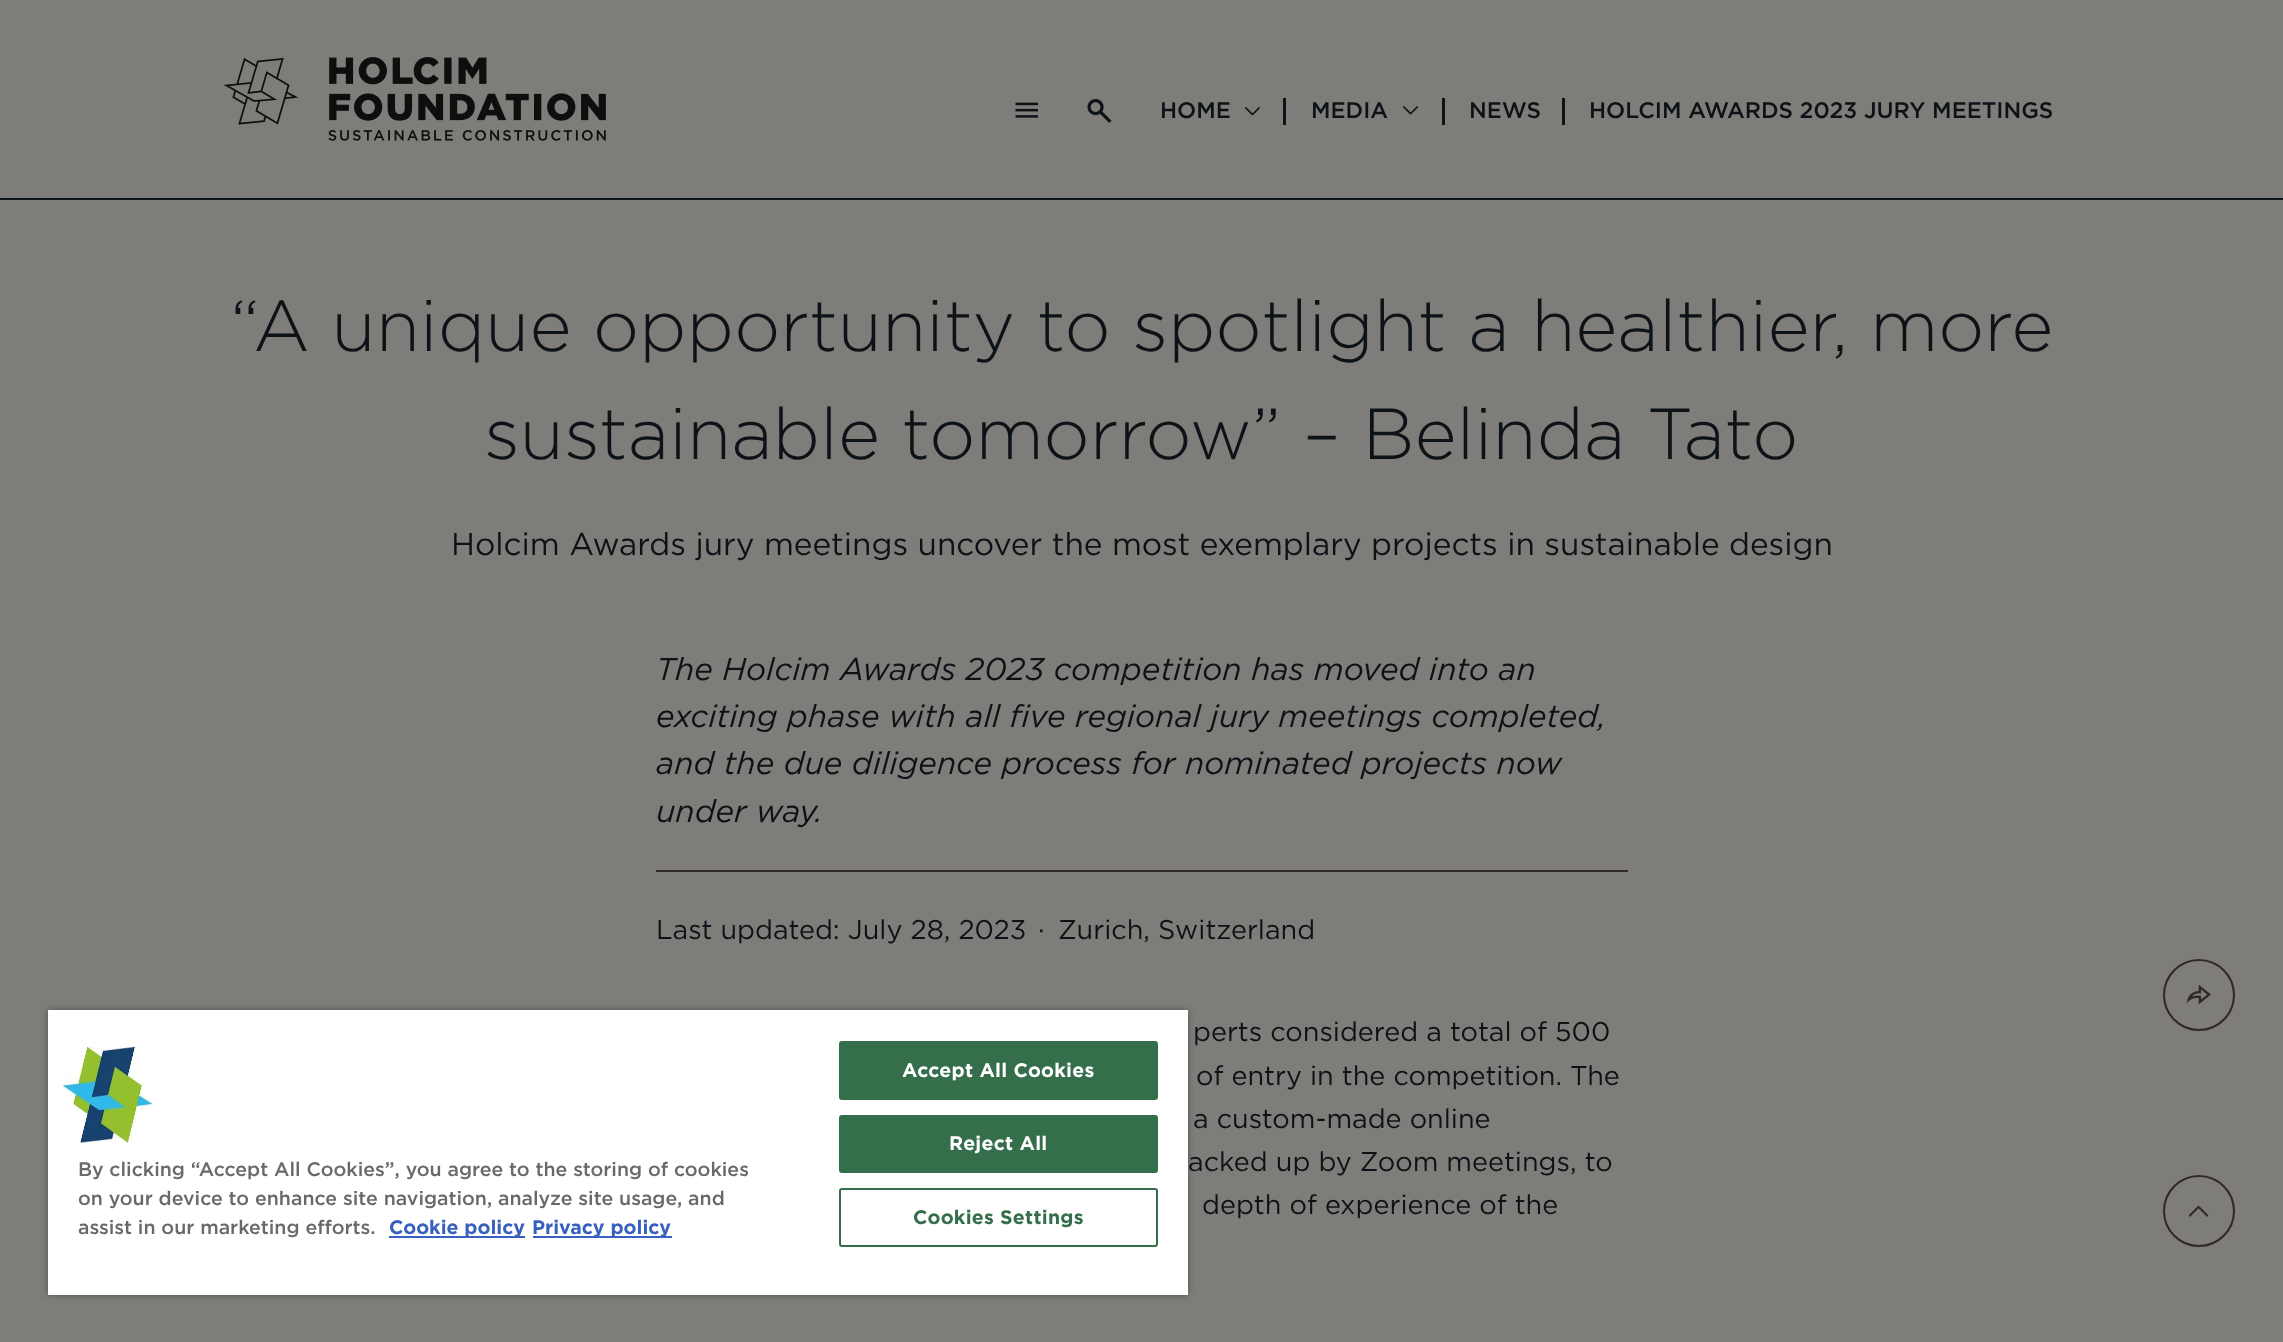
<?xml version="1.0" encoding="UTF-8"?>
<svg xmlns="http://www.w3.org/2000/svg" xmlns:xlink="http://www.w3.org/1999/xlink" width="2283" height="1342">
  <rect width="100%" height="100%" fill="#7e7d7a" />
  <rect y="198" width="2283" height="2" fill="#0d1217" />
  <image x="224" y="57" width="382" height="84" xlink:href="image1.png" />
  <image x="1015" y="102" width="23" height="16" xlink:href="image2.png" />
  <image x="1087" y="99" width="25" height="24" xlink:href="image3.png" />
  <image x="1245" y="107" width="15" height="9" xlink:href="image4.png" />
  <rect x="1283" y="98" width="3" height="27" fill="#0d1217" />
  <image x="1403" y="106" width="15" height="9" xlink:href="image5.png" />
  <rect x="1442" y="98" width="3" height="27" fill="#0d1217" />
  <rect x="1562" y="98" width="3" height="27" fill="#0d1217" />
  <rect x="656" y="870" width="972" height="2" fill="#302823" />
  <circle cx="2199" cy="995" r="35" fill="none" stroke="#302823" stroke-width="2" />
  <image x="2187" y="984" width="24" height="21" xlink:href="image6.png" />
  <circle cx="2199" cy="1211" r="35" fill="none" stroke="#302823" stroke-width="2" />
  <image x="2188" y="1205" width="21" height="12" xlink:href="image7.png" />
  <rect x="48" y="1010" width="1140" height="285" fill="#000000" fill-opacity="0.35" filter="blur(3px)" />
  <rect x="48" y="1010" width="1140" height="285" fill="#ffffff" />
  <image x="63" y="1047" width="90" height="96" xlink:href="image8.png" />
  <rect x="389" y="1236" width="136" height="2" fill="#3860be" />
  <rect x="533" y="1236" width="139" height="2" fill="#3860be" />
  <rect x="840" y="1042" width="317" height="57" rx="2" fill="#346e4a" stroke="#346e4a" stroke-width="2" />
  <rect x="840" y="1116" width="317" height="56" rx="2" fill="#346e4a" stroke="#346e4a" stroke-width="2" />
  <rect x="840" y="1189" width="317" height="57" rx="2" fill="none" stroke="#346e4a" stroke-width="2" />
  <text x="1160" y="118" style="font-family: 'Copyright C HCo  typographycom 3'; font-size: 22.5px; font-weight: 300; fill: #0d1217">HOME</text>
  <text x="1311" y="118" style="font-family: 'Copyright C HCo  typographycom 3'; font-size: 22.5px; font-weight: 300; fill: #0d1217">MEDIA</text>
  <text x="1469" y="118" style="font-family: 'Copyright C HCo  typographycom 3'; font-size: 22.5px; font-weight: 300; fill: #0d1217">NEWS</text>
  <text x="1589" y="118" style="font-family: 'Copyright C HCo  typographycom 3'; font-size: 22.5px; font-weight: 300; fill: #0d1217">HOLCIM AWARDS 2023 JURY MEETINGS</text>
  <text x="230" y="351" style="font-family: 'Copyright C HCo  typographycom'; font-size: 72px; font-weight: 300; fill: #0d1217">“A unique opportunity to spotlight a healthier, more</text>
  <text x="484" y="459" style="font-family: 'Copyright C HCo  typographycom'; font-size: 72px; font-weight: 300; fill: #0d1217">sustainable tomorrow” – Belinda Tato</text>
  <text x="451" y="555" style="font-family: 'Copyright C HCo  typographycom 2'; font-size: 31.5px; font-weight: 300; fill: #0d1217">Holcim Awards jury meetings uncover the most exemplary projects in sustainable design</text>
  <text x="656" y="680" style="font-family: 'Copyright C HCo  typographycom'; font-size: 31.5px; font-weight: 300; font-style: italic; fill: #0d1217">The Holcim Awards 2023 competition has moved into an</text>
  <text x="656" y="727" style="font-family: 'Copyright C HCo  typographycom'; font-size: 31.5px; font-weight: 300; font-style: italic; fill: #0d1217">exciting phase with all five regional jury meetings completed,</text>
  <text x="656" y="774" style="font-family: 'Copyright C HCo  typographycom'; font-size: 31.5px; font-weight: 300; font-style: italic; fill: #0d1217">and the due diligence process for nominated projects now</text>
  <text x="656" y="822" style="font-family: 'Copyright C HCo  typographycom'; font-size: 31.5px; font-weight: 300; font-style: italic; fill: #0d1217">under way.</text>
  <text x="656" y="939" style="font-family: 'Copyright C HCo  typographycom 2'; font-size: 27px; font-weight: 300; fill: #0d1217">Last updated: July 28, 2023</text>
  <text x="1038" y="939" style="font-family: 'Copyright C HCo  typographycom 2'; font-size: 27px; font-weight: 300; fill: #0d1217">·</text>
  <text x="1058" y="939" style="font-family: 'Copyright C HCo  typographycom 2'; font-size: 27px; font-weight: 300; fill: #0d1217">Zurich, Switzerland</text>
  <text x="1193" y="1041" style="font-family: 'Copyright C HCo  typographycom 2'; font-size: 27px; font-weight: 300; fill: #0d1217">perts considered a total of 500</text>
  <text x="1196" y="1085" style="font-family: 'Copyright C HCo  typographycom 2'; font-size: 27px; font-weight: 300; fill: #0d1217">of entry in the competition. The</text>
  <text x="1193" y="1128" style="font-family: 'Copyright C HCo  typographycom 2'; font-size: 27px; font-weight: 300; fill: #0d1217">a custom-made online</text>
  <text x="1188" y="1171" style="font-family: 'Copyright C HCo  typographycom 2'; font-size: 27px; font-weight: 300; fill: #0d1217">acked up by Zoom meetings, to</text>
  <text x="1202" y="1214" style="font-family: 'Copyright C HCo  typographycom 2'; font-size: 27px; font-weight: 300; fill: #0d1217">depth of experience of the</text>
  <text x="78" y="1176" style="font-family: 'Copyright C HCo  typographycom 3'; font-size: 19.5px; font-weight: 300; fill: #696969">By clicking “Accept All Cookies”, you agree to the storing of cookies</text>
  <text x="78" y="1205" style="font-family: 'Copyright C HCo  typographycom 3'; font-size: 19.5px; font-weight: 300; fill: #696969">on your device to enhance site navigation, analyze site usage, and</text>
  <text x="78" y="1234" style="font-family: 'Copyright C HCo  typographycom 3'; font-size: 19.5px; font-weight: 300; fill: #696969">assist in our marketing efforts.</text>
  <text x="389" y="1234" style="font-family: 'Copyright C HCo  typographycom'; font-size: 19.5px; fill: #3860be">Cookie policy</text>
  <text x="532" y="1234" style="font-family: 'Copyright C HCo  typographycom'; font-size: 19.5px; fill: #3860be">Privacy policy</text>
  <text x="902" y="1077" style="font-family: 'Copyright C HCo  typographycom'; font-size: 19.5px; letter-spacing: 0.25px; fill: #ffffff">Accept All Cookies</text>
  <text x="949" y="1150" style="font-family: 'Copyright C HCo  typographycom'; font-size: 19.5px; letter-spacing: 0.25px; fill: #ffffff">Reject All</text>
  <text x="913" y="1224" style="font-family: 'Copyright C HCo  typographycom'; font-size: 19.5px; letter-spacing: 0.25px; fill: #346e4a">Cookies Settings</text>
</svg>
